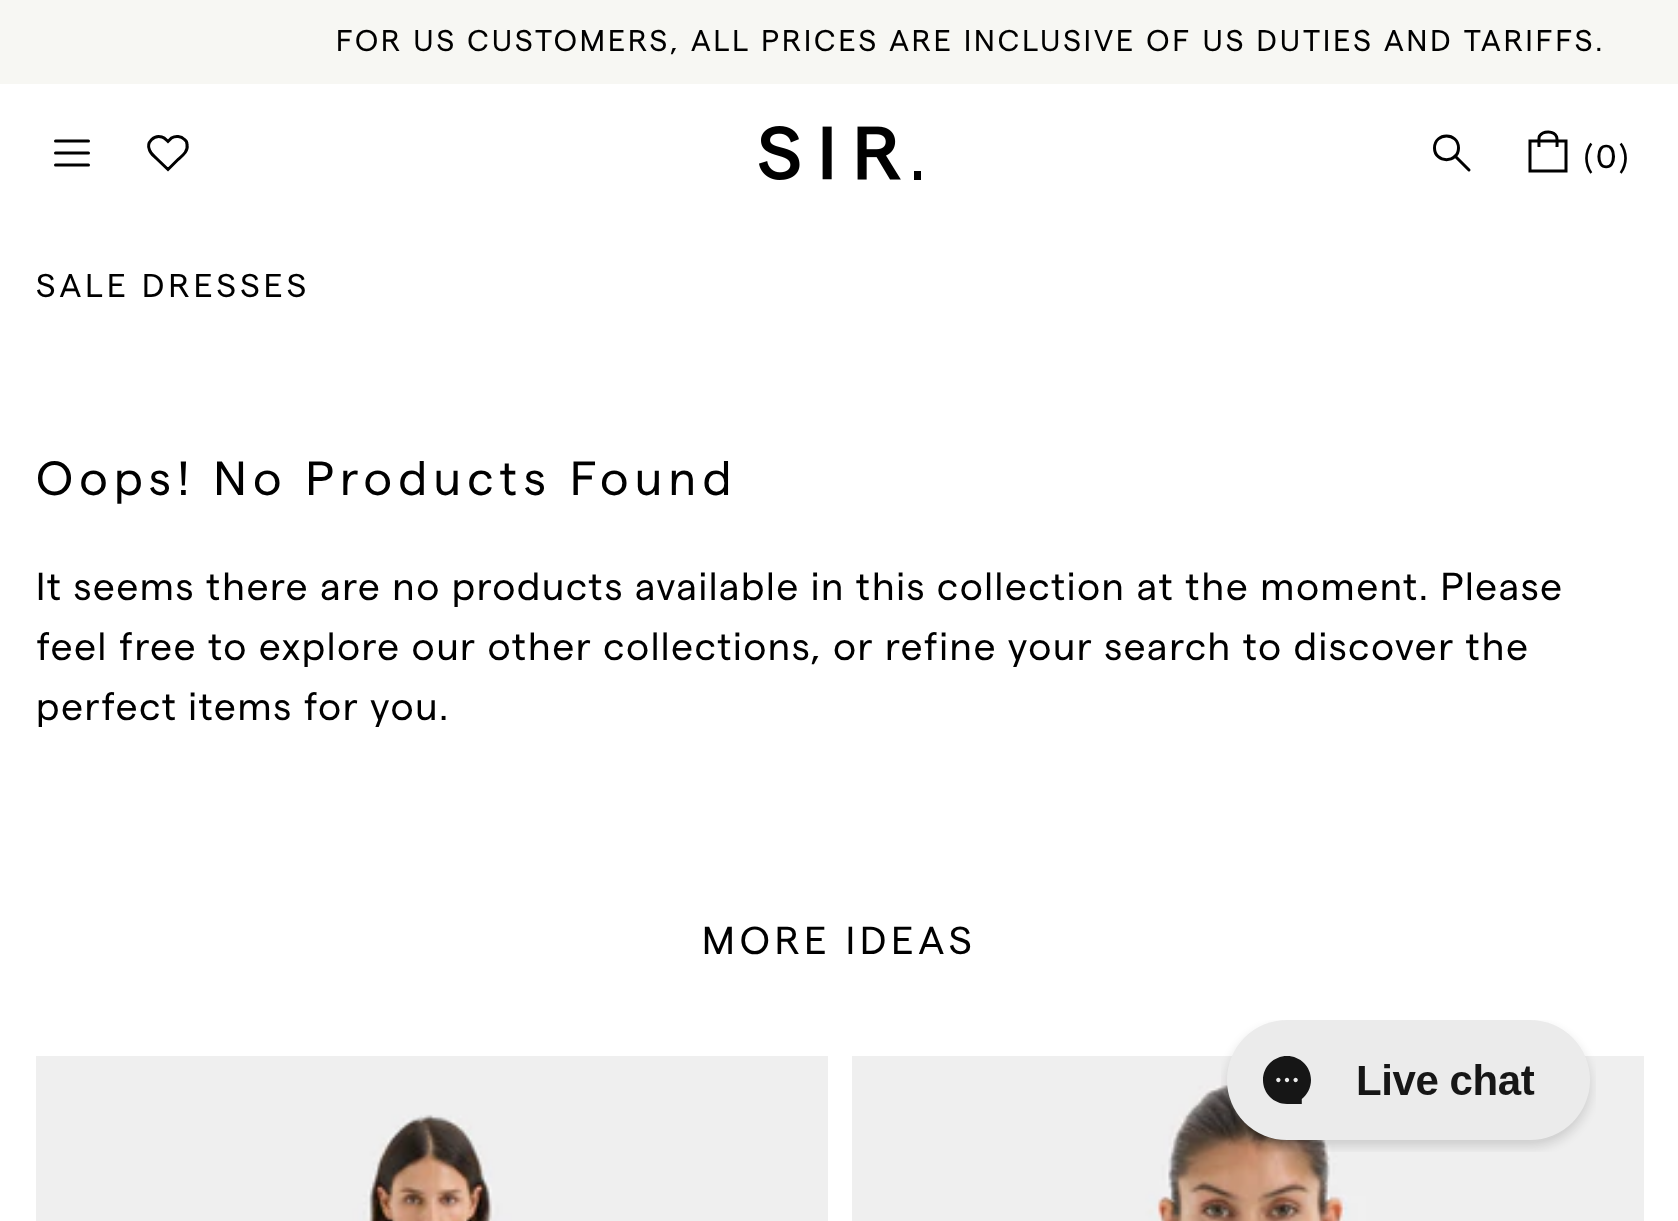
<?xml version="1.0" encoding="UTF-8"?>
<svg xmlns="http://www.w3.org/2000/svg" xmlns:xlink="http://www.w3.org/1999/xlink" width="1678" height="1221">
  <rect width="100%" height="100%" fill="#ffffff" />
  <rect width="1678" height="84" fill="#f7f7f3" />
  <path d="M 55.5 153 h 33 m -33 -12 h 33 m -33 24 h 33" fill="none" stroke="#000000" stroke-width="3" stroke-linecap="round" stroke-linejoin="round" />
  <path d="M 184.5 139.5 c -3.5 -3.5 -9 -4 -13 -1.5 l -3.5 3.5 c -2 -2 -3.5 -4 -6 -4.5 c -8 -2.5 -16 5.5 -12.5 13 c 1 3.5 4 5.5 6.5 8 l 12 11.5 l 9.5 -9.5 c 4.5 -4 11 -8.5 9.5 -15.5 c 0 -2 -1 -4 -2.5 -5 z" fill="none" stroke="#000000" stroke-width="3" stroke-linecap="square" />
  <image x="759" y="126" width="162" height="54" xlink:href="image1.png" />
  <path d="M 1458.5 148 c 0 15.5 -24 15.5 -24 0 c 0 -16 24 -16 24 0 z" fill="none" stroke="#000000" stroke-width="3" stroke-linejoin="round" />
  <path d="M 1455 156 l 14 14" fill="none" stroke="#000000" stroke-width="3" stroke-linecap="round" stroke-linejoin="round" />
  <path d="M 1566 171 h -36 v -30 h 36 z m -27 -24 c 0 -3 -0.5 -9 0.5 -11 c 3.5 -5.5 14.5 -5.5 17 0.5 c 1 2.5 0.5 8 0.5 10.5" fill="none" stroke="#000000" stroke-width="3" />
  <image x="36" y="1056" width="792" height="165" xlink:href="image2.png" />
  <image x="852" y="1056" width="792" height="165" xlink:href="image3.png" />
  <image x="1221" y="1020" width="375" height="132" xlink:href="image4.png" />
  <text x="336" y="51" style="font-family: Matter; font-size: 30px; letter-spacing: 3px; fill: #000000">FOR US CUSTOMERS, ALL PRICES ARE INCLUSIVE OF US DUTIES AND TARIFFS.</text>
  <text x="1584" y="168" style="font-family: Matter; font-size: 33px; letter-spacing: 4.25px; fill: #000000">(</text>
  <text x="1596" y="168" style="font-family: Matter; font-size: 33px; letter-spacing: 4.25px; fill: #000000">0</text>
  <text x="1619" y="168" style="font-family: Matter; font-size: 33px; letter-spacing: 4.25px; fill: #000000">)</text>
  <text x="36" y="297" style="font-family: Matter; font-size: 33px; letter-spacing: 4.25px; fill: #000000">SALE DRESSES</text>
  <text x="36" y="495" style="font-family: Matter; font-size: 48px; letter-spacing: 6.25px; fill: #000000">Oops! No Products Found</text>
  <text x="36" y="600" style="font-family: Matter; font-size: 39px; letter-spacing: 1.5px; fill: #000000">It seems there are no products available in this collection at the moment. Please</text>
  <text x="36" y="660" style="font-family: Matter; font-size: 39px; letter-spacing: 1.5px; fill: #000000">feel free to explore our other collections, or refine your search to discover the</text>
  <text x="36" y="720" style="font-family: Matter; font-size: 39px; letter-spacing: 1.5px; fill: #000000">perfect items for you.</text>
  <text x="702" y="954" style="font-family: Matter; font-size: 39px; letter-spacing: 5px; fill: #000000">MORE IDEAS</text>
</svg>
